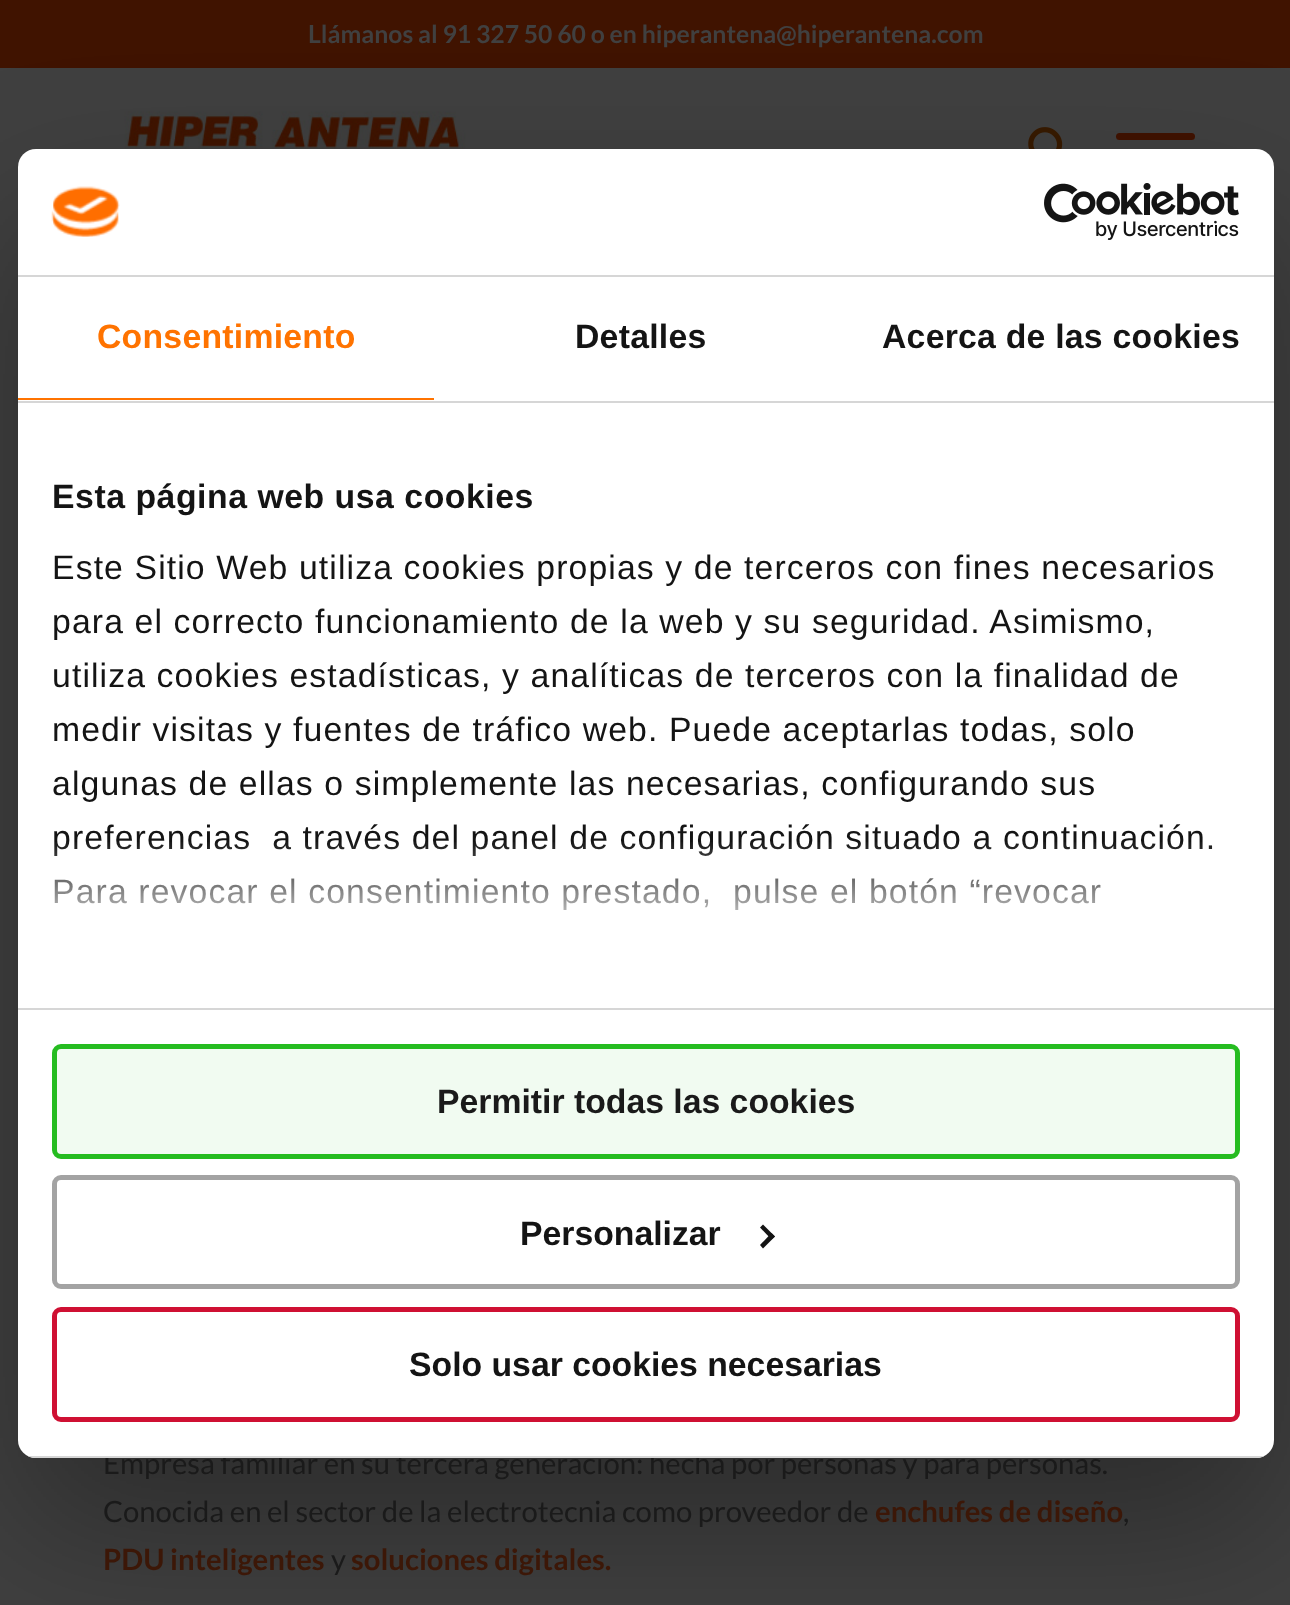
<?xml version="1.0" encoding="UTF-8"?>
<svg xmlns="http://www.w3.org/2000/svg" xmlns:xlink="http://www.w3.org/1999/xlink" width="1290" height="1605">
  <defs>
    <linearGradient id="g1" gradientUnits="userSpaceOnUse" x1="631" y1="1009" x2="631" y2="840"><stop offset="0" stop-color="#ffffff" /><stop offset="0.5" stop-color="#ffffff" stop-opacity="0.8" /><stop offset="1" stop-color="#ffffff" stop-opacity="0" /></linearGradient>
    <clipPath id="clip1"><rect x="18" y="149" width="1256" height="1309" rx="18" /></clipPath>
  </defs>
  <rect width="100%" height="100%" fill="#404040" />
  <rect width="1290" height="68" fill="#401300" />
  <image x="124" y="111" width="342" height="38" xlink:href="image1.png" />
  <image x="1028" y="127" width="35" height="22" xlink:href="image2.png" />
  <rect x="1116" y="133" width="79" height="7" rx="3.5" fill="#401200" />
  <rect x="18" y="221" width="1256" height="1309" rx="18" fill="#000000" fill-opacity="0.3" filter="blur(76.5px)" />
  <text x="308" y="43" style="font-family: Lato; font-size: 24.75px; font-weight: bold; fill: #404040">Llámanos al 91 327 50 60 o en hiperantena@hiperantena.com</text>
  <text x="103" y="1474" style="font-family: Lato; font-size: 29.25px; fill: #1a1a1a">Empresa familiar en su tercera generación: hecha por personas y para personas.</text>
  <text x="103" y="1522" style="font-family: Lato; font-size: 29.25px; fill: #1a1a1a">Conocida en el sector de la electrotecnia como proveedor de</text>
  <text x="875" y="1522" style="font-family: Lato; font-size: 29.25px; font-weight: bold; fill: #3c1707">enchufes de diseño</text>
  <text x="1123" y="1522" style="font-family: Lato; font-size: 29.25px; fill: #1a1a1a">,</text>
  <text x="103" y="1570" style="font-family: Lato; font-size: 29.25px; font-weight: bold; fill: #3c1707">PDU inteligentes</text>
  <text x="331" y="1570" style="font-family: Lato; font-size: 29.25px; fill: #1a1a1a">y</text>
  <text x="351" y="1570" style="font-family: Lato; font-size: 29.25px; font-weight: bold; fill: #3c1707">soluciones digitales.</text>
  <rect x="18" y="149" width="1256" height="1309" rx="18" fill="#ffffff" />
  <rect x="18" y="275" width="1256" height="2" fill="#d6d6d6" />
  <image x="51" y="186" width="69" height="51" xlink:href="image3.png" />
  <image x="1044" y="183" width="195" height="57" xlink:href="image4.png" />
  <rect x="18" y="401" width="1256" height="2" fill="#d6d6d6" />
  <rect x="18" y="398" width="416" height="2" fill="#ff7300" />
  <text x="97" y="348" style="font-family: Liberation Sans; font-size: 33.75px; font-weight: bold; letter-spacing: 0.25px; fill: #ff7300">Consentimiento</text>
  <text x="575" y="348" style="font-family: Liberation Sans; font-size: 33.75px; font-weight: bold; letter-spacing: 0.25px; fill: #141414">Detalles</text>
  <text x="882" y="348" style="font-family: Liberation Sans; font-size: 33.75px; font-weight: bold; letter-spacing: 0.25px; fill: #141414">Acerca de las cookies</text>
  <rect x="18" y="1008" width="1256" height="2" fill="#d6d6d6" />
  <text x="52" y="508" style="font-family: Liberation Sans; font-size: 33.75px; font-weight: bold; letter-spacing: 0.55px; fill: #141414">Esta página web usa cookies</text>
  <text x="52" y="579" style="font-family: Liberation Sans; font-size: 33.75px; letter-spacing: 1.12px; fill: #141414">Este Sitio Web utiliza cookies propias y de terceros con fines necesarios</text>
  <text x="52" y="633" style="font-family: Liberation Sans; font-size: 33.75px; letter-spacing: 1.12px; fill: #141414">para el correcto funcionamiento de la web y su seguridad. Asimismo,</text>
  <text x="52" y="687" style="font-family: Liberation Sans; font-size: 33.75px; letter-spacing: 1.12px; fill: #141414">utiliza cookies estadísticas, y analíticas de terceros con la finalidad de</text>
  <text x="52" y="741" style="font-family: Liberation Sans; font-size: 33.75px; letter-spacing: 1.12px; fill: #141414">medir visitas y fuentes de tráfico web. Puede aceptarlas todas, solo</text>
  <text x="52" y="795" style="font-family: Liberation Sans; font-size: 33.75px; letter-spacing: 1.12px; fill: #141414">algunas de ellas o simplemente las necesarias, configurando sus</text>
  <text x="52" y="849" style="font-family: Liberation Sans; font-size: 33.75px; letter-spacing: 1.12px; fill: #141414" xml:space="preserve">preferencias  a través del panel de configuración situado a continuación.</text>
  <text x="52" y="903" style="font-family: Liberation Sans; font-size: 33.75px; letter-spacing: 1.12px; fill: #141414" xml:space="preserve">Para revocar el consentimiento prestado,  pulse el botón “revocar</text>
  <rect x="54" y="842" width="1159" height="68" fill="url(#g1)" />
  <g clip-path="url(#clip1)">
    <rect x="28" y="1456" width="1236" height="2" fill="#d6d6d6" />
  </g>
  <rect x="54.5" y="1046.5" width="1183" height="110" rx="6.5" fill="#f1fbf1" stroke="#25bc20" stroke-width="5" />
  <text x="437" y="1113" style="font-family: Liberation Sans; font-size: 33.75px; font-weight: bold; fill: #1a1a1a">Permitir todas las cookies</text>
  <rect x="54.5" y="1177.5" width="1183" height="109" rx="6.5" fill="none" stroke="#a3a3a3" stroke-width="5" />
  <text x="520" y="1245" style="font-family: Liberation Sans; font-size: 33.75px; font-weight: bold; fill: #141414">Personalizar</text>
  <path d="M 763 1224.5 l 12 12 l -3.5 3 l -11.5 -12 z" fill="#141414" />
  <path d="M 771.5 1233 l 3.5 3.5 l -12 12 l -3 -3.5 z" fill="#141414" />
  <rect x="54.5" y="1309.5" width="1183" height="110" rx="6.5" fill="none" stroke="#cf1033" stroke-width="5" />
  <text x="409" y="1376" style="font-family: Liberation Sans; font-size: 33.75px; font-weight: bold; fill: #141414">Solo usar cookies necesarias</text>
</svg>
